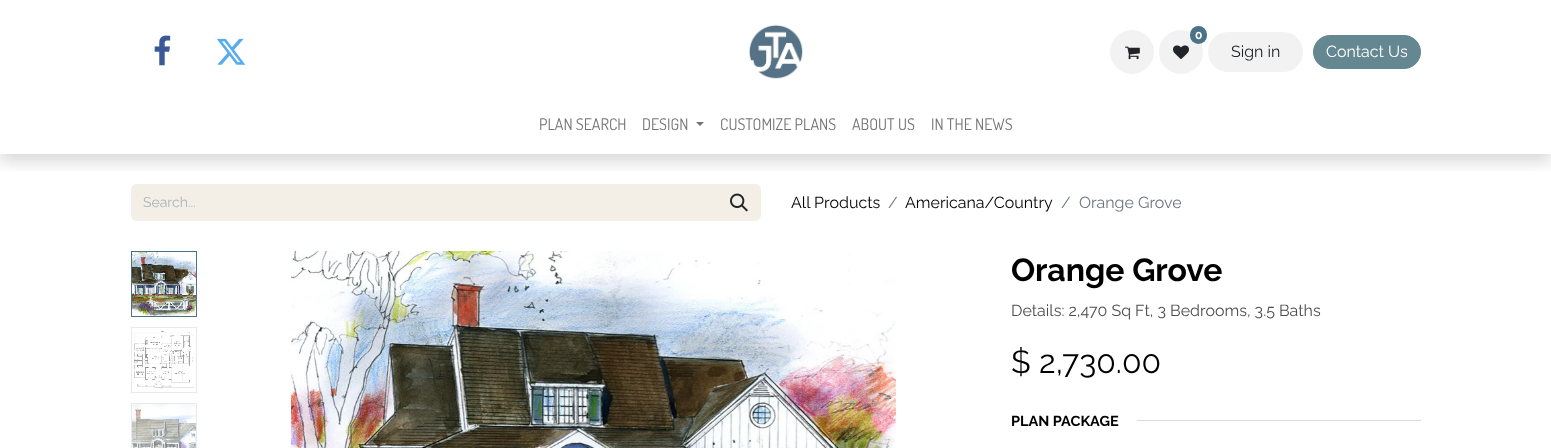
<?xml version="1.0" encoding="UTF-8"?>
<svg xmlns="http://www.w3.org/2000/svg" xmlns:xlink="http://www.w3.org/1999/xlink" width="1551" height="448">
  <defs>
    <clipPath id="clip1"><rect x="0" y="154" width="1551" height="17" /></clipPath>
  </defs>
  <rect width="100%" height="100%" fill="#ffffff" />
  <path d="M 137 184 h 581 v 37 h -581 c -3.5 0 -6 -2.5 -6 -6 v -25 c 0 -3.5 2.5 -6 6 -6 z" fill="#f3eee6" />
  <path d="M 717.5 184.5 h 37.5 c 3 0 5.5 2.5 5.5 5.5 v 25 c 0 3 -2.5 5.5 -5.5 5.5 h -37.5 z" fill="#f3eee6" stroke="#f3eee6" />
  <g clip-path="url(#clip1)">
    <rect y="8" width="1551" height="154" fill="#000000" fill-opacity="0.15" filter="blur(8px)" />
  </g>
  <image x="154" y="35" width="17" height="31" xlink:href="image1.png" />
  <image x="216" y="38" width="30" height="27" xlink:href="image2.png" />
  <image x="749" y="24" width="54" height="55" xlink:href="image3.png" />
  <circle cx="1132" cy="52" r="22" fill="#f2f2f2" />
  <image x="1125" y="46" width="15" height="14" xlink:href="image4.png" />
  <circle cx="1181" cy="52" r="22" fill="#f2f2f2" />
  <rect x="1190" y="26" width="17" height="18" rx="8.5" fill="#4c7288" />
  <image x="1173" y="45" width="16" height="15" xlink:href="image5.png" />
  <rect x="1208" y="32" width="95" height="40" rx="20" fill="#f2f2f2" />
  <rect x="1313.5" y="35.5" width="107" height="33" rx="16.5" fill="#658791" stroke="#658791" />
  <path d="M 696 122 h 8 l -4 4 z" fill="#737373" />
  <image x="730" y="193" width="18" height="19" xlink:href="image6.png" />
  <rect x="131.5" y="251.5" width="65" height="65" fill="none" stroke="#4c7288" />
  <image x="132" y="252" width="64" height="64" xlink:href="image7.png" />
  <rect x="131.5" y="327.5" width="65" height="65" fill="none" stroke="#e7eaed" />
  <image x="134" y="330" width="61" height="59" xlink:href="image8.png" />
  <rect x="131.5" y="403.5" width="65" height="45" fill="none" stroke="#e7eaed" />
  <image x="132" y="404" width="64" height="44" xlink:href="image9.png" />
  <image x="291" y="251" width="605" height="197" xlink:href="image10.png" />
  <rect x="1137" y="420" width="284" height="1" fill="#d9d9d9" />
  <text x="1195" y="39" style="font-family: Raleway; font-size: 12px; font-weight: bold; fill: #ffffff">0</text>
  <text x="1231" y="57" style="font-family: Raleway; font-size: 16px; fill: #212529">Sign in</text>
  <text x="1326" y="57" style="font-family: Raleway; font-size: 16px; fill: #ffffff">Contact Us</text>
  <text x="539" y="130" style="font-family: Dosis; font-size: 16px; fill: #737373">PLAN SEARCH</text>
  <text x="642" y="130" style="font-family: Dosis; font-size: 16px; fill: #737373">DESIGN</text>
  <text x="720" y="130" style="font-family: Dosis; font-size: 16px; fill: #737373">CUSTOMIZE PLANS</text>
  <text x="852" y="130" style="font-family: Dosis; font-size: 16px; fill: #737373">ABOUT US</text>
  <text x="931" y="130" style="font-family: Dosis; font-size: 16px; fill: #737373">IN THE NEWS</text>
  <text x="143" y="207" style="font-family: Raleway; font-size: 14px; fill: #adb5bd">Search...</text>
  <text x="791" y="208" style="font-family: Raleway; font-size: 16px; fill: #000000">All Products</text>
  <text x="888" y="208" style="font-family: Raleway; font-size: 16px; fill: #6c757d">/</text>
  <text x="905" y="208" style="font-family: Raleway; font-size: 16px; fill: #000000">Americana/Country</text>
  <text x="1061" y="208" style="font-family: Raleway; font-size: 16px; fill: #6c757d">/</text>
  <text x="1079" y="208" style="font-family: Raleway; font-size: 16px; fill: #6c757d">Orange Grove</text>
  <text x="1011" y="281" style="font-family: Raleway; font-size: 32px; font-weight: bold; fill: #000000">Orange Grove</text>
  <text x="1011" y="316" style="font-family: Raleway; font-size: 16px; fill: #4d4d4d">Details: 2,470 Sq Ft, 3 Bedrooms, 3.5 Baths</text>
  <text x="1011" y="373" style="font-family: Raleway; font-size: 32px; fill: #000000">$ 2,730.00</text>
  <text x="1011" y="426" style="font-family: Raleway; font-size: 14.5px; font-weight: bold; fill: #000000">PLAN PACKAGE</text>
</svg>
